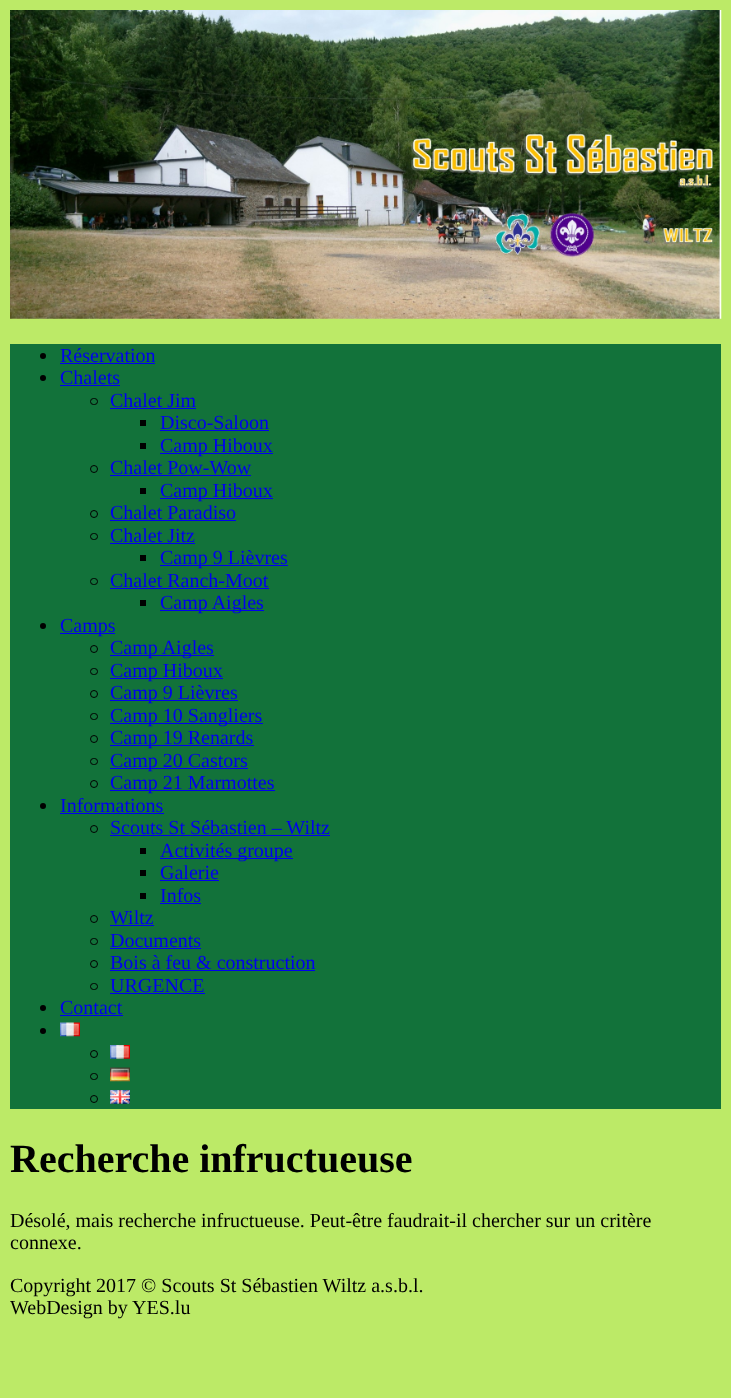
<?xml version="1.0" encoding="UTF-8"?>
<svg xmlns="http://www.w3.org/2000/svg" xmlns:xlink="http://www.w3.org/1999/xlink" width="731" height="1398">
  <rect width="100%" height="100%" fill="#bcea67" />
  <image x="10" y="10" width="712" height="309" xlink:href="image1.png" />
  <rect x="10" y="344" width="711" height="765" fill="#12723a" />
  <circle cx="43" cy="356" r="3" fill="#000000" />
  <rect x="60" y="363" width="95" height="1" fill="#0000ee" />
  <circle cx="43" cy="378" r="3" fill="#000000" />
  <rect x="60" y="385" width="60" height="1" fill="#0000ee" />
  <rect x="90.5" y="398.5" width="7" height="6" rx="3" fill="none" stroke="#000000" />
  <rect x="110" y="408" width="86" height="1" fill="#0000ee" />
  <rect x="140" y="420" width="6" height="6" fill="#000000" />
  <rect x="160" y="430" width="109" height="1" fill="#0000ee" />
  <rect x="140" y="443" width="6" height="6" fill="#000000" />
  <rect x="160" y="453" width="113" height="1" fill="#0000ee" />
  <circle cx="94" cy="469" r="3.5" fill="none" stroke="#000000" />
  <rect x="110" y="475" width="141" height="1" fill="#0000ee" />
  <rect x="140" y="488" width="6" height="6" fill="#000000" />
  <rect x="160" y="498" width="113" height="1" fill="#0000ee" />
  <circle cx="94" cy="514" r="3.5" fill="none" stroke="#000000" />
  <rect x="110" y="520" width="126" height="1" fill="#0000ee" />
  <rect x="90.5" y="533.5" width="7" height="6" rx="3" fill="none" stroke="#000000" />
  <rect x="110" y="543" width="85" height="1" fill="#0000ee" />
  <rect x="140" y="555" width="6" height="6" fill="#000000" />
  <rect x="160" y="565" width="128" height="1" fill="#0000ee" />
  <rect x="90.5" y="578.5" width="7" height="6" rx="3" fill="none" stroke="#000000" />
  <rect x="110" y="588" width="159" height="1" fill="#0000ee" />
  <rect x="140" y="600" width="6" height="6" fill="#000000" />
  <rect x="160" y="610" width="104" height="1" fill="#0000ee" />
  <circle cx="43" cy="626" r="3" fill="#000000" />
  <rect x="60" y="633" width="55" height="1" fill="#0000ee" />
  <circle cx="94" cy="649" r="3.5" fill="none" stroke="#000000" />
  <rect x="110" y="655" width="104" height="1" fill="#0000ee" />
  <rect x="90.5" y="668.5" width="7" height="6" rx="3" fill="none" stroke="#000000" />
  <rect x="110" y="678" width="113" height="1" fill="#0000ee" />
  <circle cx="94" cy="694" r="3.5" fill="none" stroke="#000000" />
  <rect x="110" y="700" width="128" height="1" fill="#0000ee" />
  <rect x="90.5" y="713.5" width="7" height="6" rx="3" fill="none" stroke="#000000" />
  <rect x="110" y="723" width="153" height="1" fill="#0000ee" />
  <circle cx="94" cy="739" r="3.5" fill="none" stroke="#000000" />
  <rect x="110" y="745" width="144" height="1" fill="#0000ee" />
  <rect x="90.5" y="758.5" width="7" height="6" rx="3" fill="none" stroke="#000000" />
  <rect x="110" y="768" width="138" height="1" fill="#0000ee" />
  <circle cx="94" cy="784" r="3.5" fill="none" stroke="#000000" />
  <rect x="110" y="790" width="165" height="1" fill="#0000ee" />
  <circle cx="43" cy="806" r="3" fill="#000000" />
  <rect x="60" y="813" width="104" height="1" fill="#0000ee" />
  <circle cx="94" cy="829" r="3.5" fill="none" stroke="#000000" />
  <rect x="110" y="835" width="220" height="1" fill="#0000ee" />
  <rect x="140" y="848" width="6" height="6" fill="#000000" />
  <rect x="160" y="858" width="133" height="1" fill="#0000ee" />
  <rect x="140" y="870" width="6" height="6" fill="#000000" />
  <rect x="160" y="880" width="59" height="1" fill="#0000ee" />
  <rect x="140" y="893" width="6" height="6" fill="#000000" />
  <rect x="160" y="903" width="41" height="1" fill="#0000ee" />
  <circle cx="94" cy="919" r="3.5" fill="none" stroke="#000000" />
  <rect x="110" y="925" width="44" height="1" fill="#0000ee" />
  <rect x="90.5" y="938.5" width="7" height="6" rx="3" fill="none" stroke="#000000" />
  <rect x="110" y="948" width="91" height="1" fill="#0000ee" />
  <circle cx="94" cy="964" r="3.5" fill="none" stroke="#000000" />
  <rect x="110" y="970" width="205" height="1" fill="#0000ee" />
  <rect x="90.5" y="983.5" width="7" height="6" rx="3" fill="none" stroke="#000000" />
  <rect x="110" y="993" width="95" height="1" fill="#0000ee" />
  <circle cx="43" cy="1008" r="3" fill="#000000" />
  <rect x="60" y="1015" width="63" height="1" fill="#0000ee" />
  <circle cx="43" cy="1031" r="3" fill="#000000" />
  <image x="60" y="1022" width="20" height="15" xlink:href="image2.png" />
  <circle cx="94" cy="1054" r="3.5" fill="none" stroke="#000000" />
  <image x="110" y="1045" width="20" height="14" xlink:href="image3.png" />
  <rect x="90.5" y="1073.5" width="7" height="6" rx="3" fill="none" stroke="#000000" />
  <image x="110" y="1067" width="20" height="15" xlink:href="image4.png" />
  <circle cx="94" cy="1099" r="3.5" fill="none" stroke="#000000" />
  <image x="110" y="1090" width="20" height="14" xlink:href="image5.png" />
  <text x="60" y="362" style="font-family: Liberation Serif; font-size: 20px; fill: #0000ee">Réservation</text>
  <text x="60" y="384" style="font-family: Liberation Serif; font-size: 20px; fill: #0000ee">Chalets</text>
  <text x="110" y="407" style="font-family: Liberation Serif; font-size: 20px; fill: #0000ee">Chalet Jim</text>
  <text x="160" y="429" style="font-family: Liberation Serif; font-size: 20px; fill: #0000ee">Disco-Saloon</text>
  <text x="160" y="452" style="font-family: Liberation Serif; font-size: 20px; fill: #0000ee">Camp Hiboux</text>
  <text x="110" y="474" style="font-family: Liberation Serif; font-size: 20px; fill: #0000ee">Chalet Pow-Wow</text>
  <text x="160" y="497" style="font-family: Liberation Serif; font-size: 20px; fill: #0000ee">Camp Hiboux</text>
  <text x="110" y="519" style="font-family: Liberation Serif; font-size: 20px; fill: #0000ee">Chalet Paradiso</text>
  <text x="110" y="542" style="font-family: Liberation Serif; font-size: 20px; fill: #0000ee">Chalet Jitz</text>
  <text x="160" y="564" style="font-family: Liberation Serif; font-size: 20px; fill: #0000ee">Camp 9 Lièvres</text>
  <text x="110" y="587" style="font-family: Liberation Serif; font-size: 20px; fill: #0000ee">Chalet Ranch-Moot</text>
  <text x="160" y="609" style="font-family: Liberation Serif; font-size: 20px; fill: #0000ee">Camp Aigles</text>
  <text x="60" y="632" style="font-family: Liberation Serif; font-size: 20px; fill: #0000ee">Camps</text>
  <text x="110" y="654" style="font-family: Liberation Serif; font-size: 20px; fill: #0000ee">Camp Aigles</text>
  <text x="110" y="677" style="font-family: Liberation Serif; font-size: 20px; fill: #0000ee">Camp Hiboux</text>
  <text x="110" y="699" style="font-family: Liberation Serif; font-size: 20px; fill: #0000ee">Camp 9 Lièvres</text>
  <text x="110" y="722" style="font-family: Liberation Serif; font-size: 20px; fill: #0000ee">Camp 10 Sangliers</text>
  <text x="110" y="744" style="font-family: Liberation Serif; font-size: 20px; fill: #0000ee">Camp 19 Renards</text>
  <text x="110" y="767" style="font-family: Liberation Serif; font-size: 20px; fill: #0000ee">Camp 20 Castors</text>
  <text x="110" y="789" style="font-family: Liberation Serif; font-size: 20px; fill: #0000ee">Camp 21 Marmottes</text>
  <text x="60" y="812" style="font-family: Liberation Serif; font-size: 20px; fill: #0000ee">Informations</text>
  <text x="110" y="834" style="font-family: Liberation Serif; font-size: 20px; fill: #0000ee">Scouts St Sébastien – Wiltz</text>
  <text x="160" y="857" style="font-family: Liberation Serif; font-size: 20px; fill: #0000ee">Activités groupe</text>
  <text x="160" y="879" style="font-family: Liberation Serif; font-size: 20px; fill: #0000ee">Galerie</text>
  <text x="160" y="902" style="font-family: Liberation Serif; font-size: 20px; fill: #0000ee">Infos</text>
  <text x="110" y="924" style="font-family: Liberation Serif; font-size: 20px; fill: #0000ee">Wiltz</text>
  <text x="110" y="947" style="font-family: Liberation Serif; font-size: 20px; fill: #0000ee">Documents</text>
  <text x="110" y="969" style="font-family: Liberation Serif; font-size: 20px; fill: #0000ee">Bois à feu &amp; construction</text>
  <text x="110" y="992" style="font-family: Liberation Serif; font-size: 20px; fill: #0000ee">URGENCE</text>
  <text x="60" y="1014" style="font-family: Liberation Serif; font-size: 20px; fill: #0000ee">Contact</text>
  <text x="10" y="1172" style="font-family: Liberation Serif; font-size: 40px; font-weight: bold; fill: #000000">Recherche infructueuse</text>
  <text x="10" y="1227" style="font-family: Liberation Serif; font-size: 20px; fill: #000000">Désolé, mais recherche infructueuse. Peut-être faudrait-il chercher sur un critère</text>
  <text x="10" y="1249" style="font-family: Liberation Serif; font-size: 20px; fill: #000000">connexe.</text>
  <text x="10" y="1292" style="font-family: Liberation Serif; font-size: 20px; fill: #000000">Copyright 2017 © Scouts St Sébastien Wiltz a.s.b.l.</text>
  <text x="10" y="1314" style="font-family: Liberation Serif; font-size: 20px; fill: #000000">WebDesign by YES.lu</text>
</svg>
